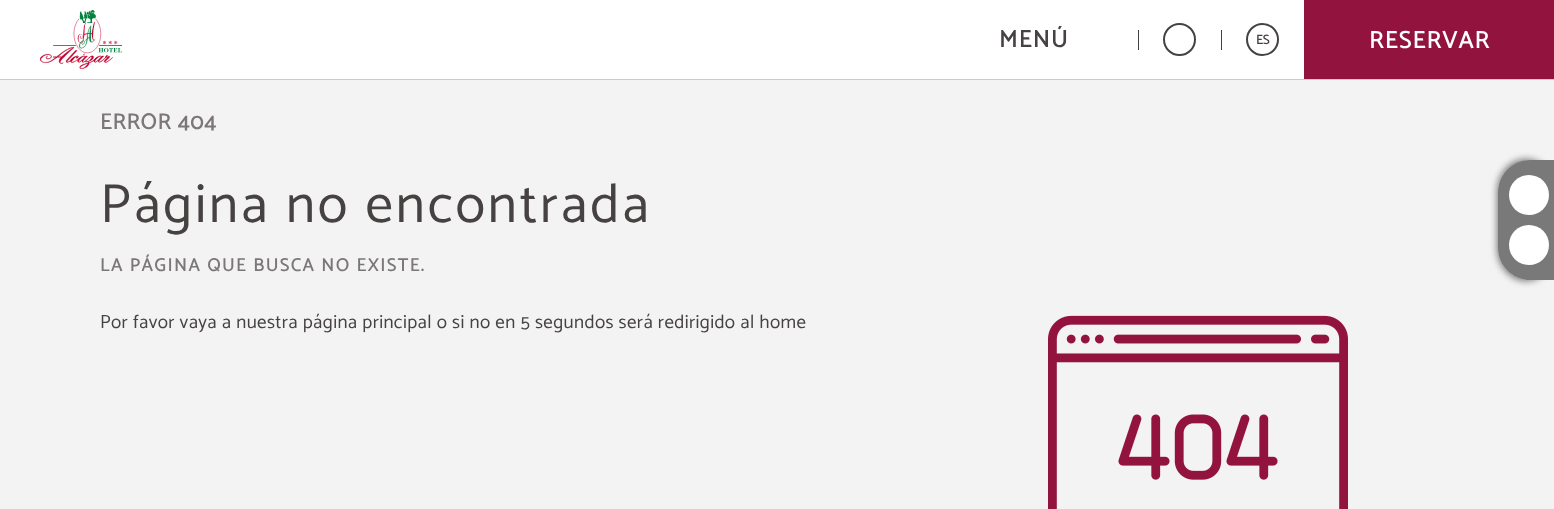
<?xml version="1.0" encoding="UTF-8"?>
<svg xmlns="http://www.w3.org/2000/svg" xmlns:xlink="http://www.w3.org/1999/xlink" width="1554" height="509">
  <defs>
    <clipPath id="clip1"><path d="M 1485 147 h 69 v 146 h -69 z m 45 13 h 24 v 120 h -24 c -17.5 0 -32 -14.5 -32 -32 v -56 c 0 -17.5 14.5 -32 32 -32 z" clip-rule="evenodd" /></clipPath>
    <clipPath id="clip2"><rect x="999" y="26" width="70" height="27" /></clipPath>
  </defs>
  <rect width="100%" height="100%" fill="#f3f3f3" />
  <rect width="1304" height="79" fill="#ffffff" />
  <rect y="79" width="1554" height="1" fill="#cccbcc" />
  <image x="40" y="10" width="82" height="59" xlink:href="image1.png" />
  <rect x="1138" y="30" width="1" height="20" fill="#474242" />
  <circle cx="1179.5" cy="39.5" r="15.5" fill="none" stroke="#474242" stroke-width="2" />
  <rect x="1221" y="30" width="1" height="20" fill="#474242" />
  <circle cx="1262.5" cy="39.5" r="15.5" fill="none" stroke="#474242" stroke-width="2" />
  <rect x="1304" width="250" height="79" fill="#92133e" />
  <image x="1048" y="315" width="300" height="194" xlink:href="image2.png" />
  <g clip-path="url(#clip1)">
    <rect x="1497" y="159" width="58" height="122" rx="33" fill="#000000" fill-opacity="0.5" filter="blur(3.5px)" />
  </g>
  <path d="M 1530 160 h 24 v 120 h -24 c -17.5 0 -32 -14.5 -32 -32 v -56 c 0 -17.5 14.5 -32 32 -32 z" fill="#000000" fill-opacity="0.5" />
  <circle cx="1529" cy="195" r="20" fill="#ffffff" />
  <circle cx="1529" cy="245" r="20" fill="#ffffff" />
  <g clip-path="url(#clip2)">
    <text x="999" y="47" style="font-family: Catamaran; font-size: 24px; font-weight: bold; letter-spacing: 1.5px; fill: #474242">MENÚ</text>
  </g>
  <text x="1256" y="44" style="font-family: Catamaran; font-size: 13px; font-weight: bold; fill: #474242">ES</text>
  <text x="1369" y="48" style="font-family: Catamaran; font-size: 24px; font-weight: bold; letter-spacing: 1.5px; fill: #ffffff">RESERVAR</text>
  <text x="100" y="129" style="font-family: Catamaran; font-size: 22px; font-weight: bold; letter-spacing: 1px; fill: #7b7777">ERROR 404</text>
  <text x="100" y="222" style="font-family: Catamaran; font-size: 55px; font-weight: 100; letter-spacing: 2.75px; fill: #474242">Página no encontrada</text>
  <text x="100" y="271" style="font-family: Catamaran; font-size: 18px; font-weight: bold; letter-spacing: 1.8px; fill: #7b7777">LA PÁGINA QUE BUSCA NO EXISTE.</text>
  <text x="100" y="328" style="font-family: Catamaran; font-size: 19px; font-weight: 100; letter-spacing: 0.38px; fill: #474242">Por favor vaya a nuestra página principal o si no en 5 segundos será redirigido al home</text>
</svg>
